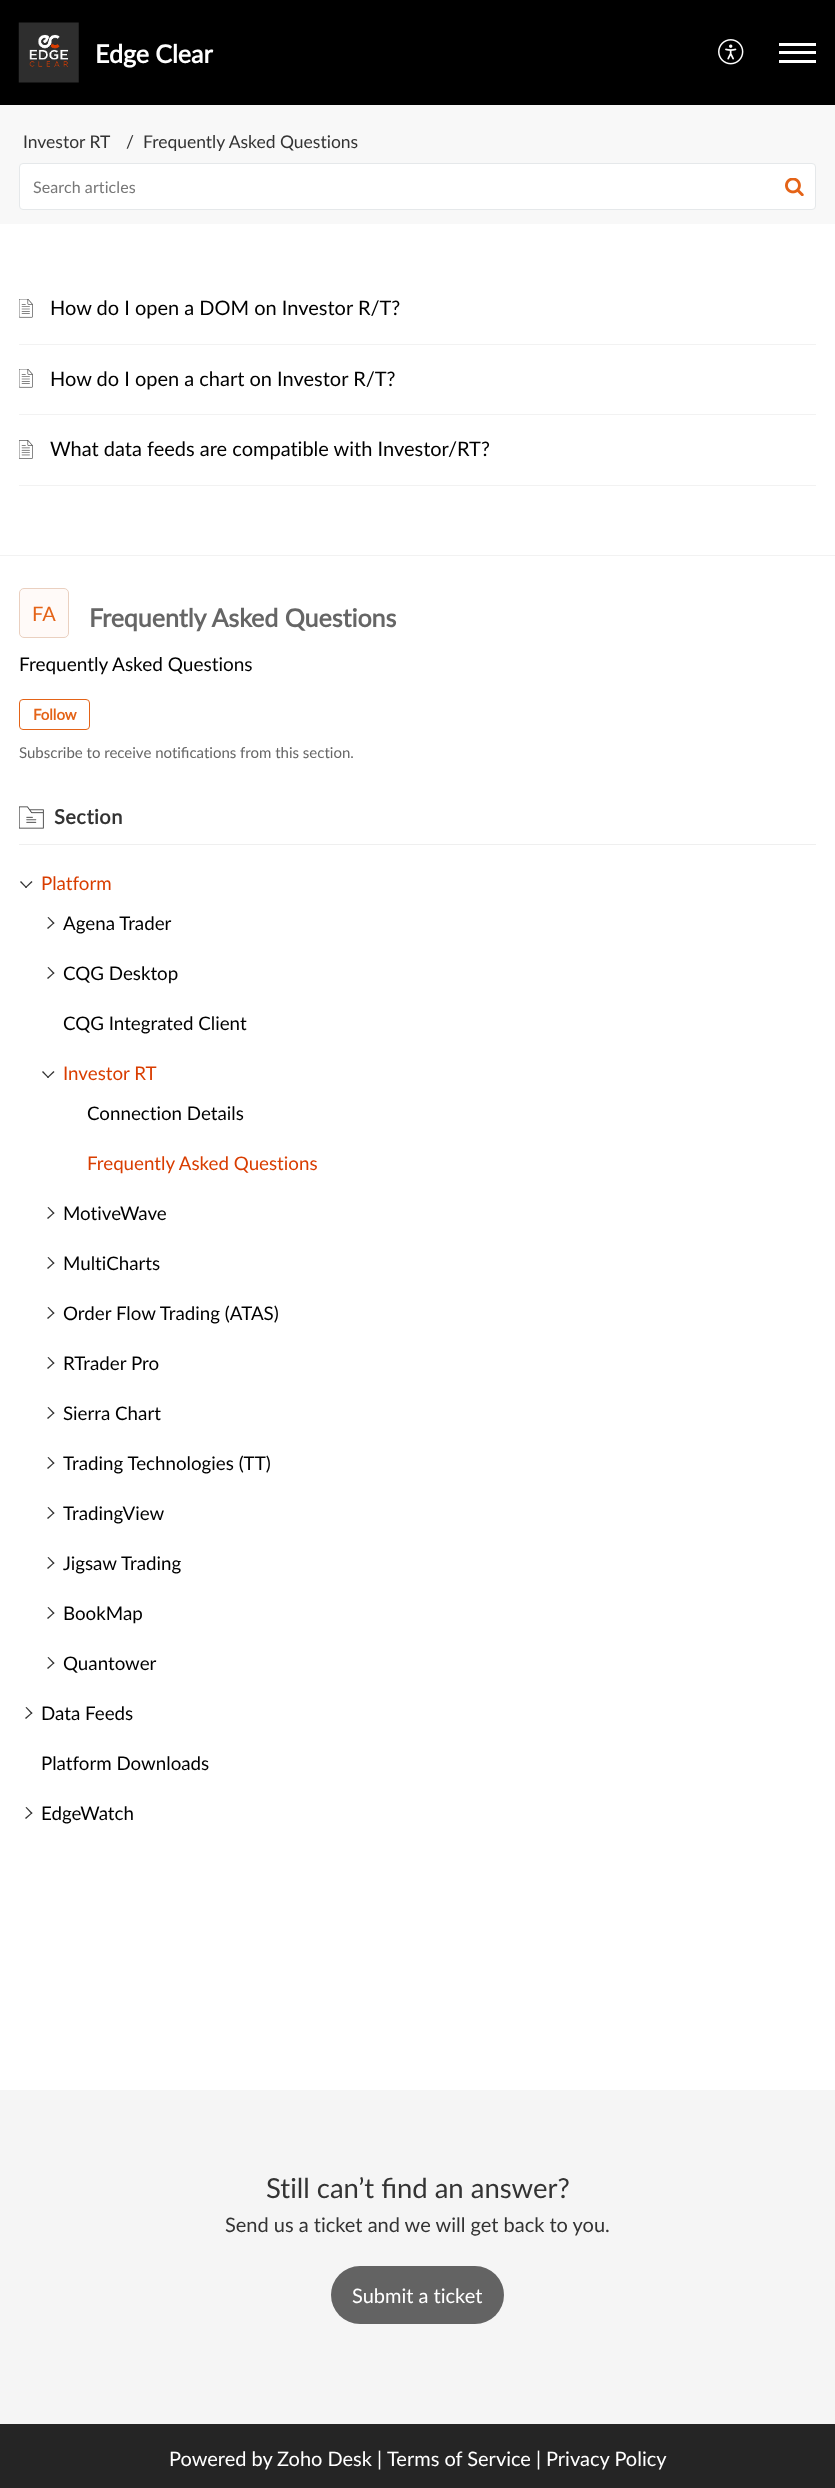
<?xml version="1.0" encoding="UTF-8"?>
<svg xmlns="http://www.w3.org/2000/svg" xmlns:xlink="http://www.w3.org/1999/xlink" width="835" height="2488">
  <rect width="100%" height="100%" fill="#ffffff" />
  <rect width="835" height="105" fill="#000000" />
  <image x="18" y="22" width="61" height="61" xlink:href="image1.png" />
  <image x="718" y="39" width="26" height="26" xlink:href="image2.png" />
  <rect x="779" y="51" width="37" height="3" fill="#ffffff" />
  <rect x="779" y="43" width="37" height="3" fill="#ffffff" />
  <rect x="779" y="60" width="37" height="3" fill="#ffffff" />
  <rect y="105" width="835" height="119" fill="#f8f8f8" />
  <rect x="19.5" y="163.5" width="796" height="46" rx="3.5" fill="#ffffff" stroke="#e5e8ea" />
  <image x="785" y="178" width="19" height="18" xlink:href="image3.png" />
  <rect y="555" width="835" height="1" fill="#f2f2f2" />
  <rect x="19" y="344" width="797" height="1" fill="#f2f2f2" />
  <image x="19" y="299" width="14" height="19" xlink:href="image4.png" />
  <rect x="19" y="414" width="797" height="1" fill="#f2f2f2" />
  <image x="19" y="369" width="14" height="19" xlink:href="image4.png" />
  <rect x="19" y="485" width="797" height="1" fill="#f2f2f2" />
  <image x="19" y="440" width="14" height="19" xlink:href="image5.png" />
  <rect x="19.5" y="588.5" width="49" height="49" rx="4.5" fill="#fffaf8" stroke="#ead0c0" />
  <rect x="19.5" y="699.5" width="70" height="30" rx="3.5" fill="none" stroke="#e46317" />
  <rect x="19" y="844" width="797" height="1" fill="#efefef" />
  <image x="19" y="806" width="25" height="23" xlink:href="image6.png" />
  <path d="M 25 887.5 l 6.5 -6.5 l 1 1 l -6.5 6 z" fill="#333333" />
  <path d="M 20 882 l 1 -1 l 6 6.5 l -1 0.5 z" fill="#333333" />
  <path d="M 53.5 924 l -6 -6.5 l 1 -0.5 l 6 6 z" fill="#333333" />
  <path d="M 48 929 l -1 -1 l 6.5 -5.5 l 1 0.5 z" fill="#333333" />
  <path d="M 53.5 974 l -6 -6.5 l 1 -0.5 l 6 6 z" fill="#333333" />
  <path d="M 48 979 l -1 -1 l 6.5 -5.5 l 1 0.5 z" fill="#333333" />
  <path d="M 47 1077.5 l 6.5 -6.5 l 1 1 l -6.5 6 z" fill="#333333" />
  <path d="M 42 1072 l 1 -1 l 6 6.5 l -1 0.5 z" fill="#333333" />
  <path d="M 53.5 1214 l -6 -6.5 l 1 -0.5 l 6 6 z" fill="#333333" />
  <path d="M 48 1219 l -1 -1 l 6.5 -5.5 l 1 0.5 z" fill="#333333" />
  <path d="M 53.5 1264 l -6 -6.5 l 1 -0.5 l 6 6 z" fill="#333333" />
  <path d="M 48 1269 l -1 -1 l 6.5 -5.5 l 1 0.5 z" fill="#333333" />
  <path d="M 53.5 1314 l -6 -6.5 l 1 -0.5 l 6 6 z" fill="#333333" />
  <path d="M 48 1319 l -1 -1 l 6.5 -5.5 l 1 0.5 z" fill="#333333" />
  <path d="M 53.5 1364 l -6 -6.5 l 1 -0.5 l 6 6 z" fill="#333333" />
  <path d="M 48 1369 l -1 -1 l 6.5 -5.5 l 1 0.5 z" fill="#333333" />
  <path d="M 53.5 1414 l -6 -6.5 l 1 -0.5 l 6 6 z" fill="#333333" />
  <path d="M 48 1419 l -1 -1 l 6.5 -5.5 l 1 0.5 z" fill="#333333" />
  <path d="M 53.5 1464 l -6 -6.5 l 1 -0.5 l 6 6 z" fill="#333333" />
  <path d="M 48 1469 l -1 -1 l 6.5 -5.5 l 1 0.5 z" fill="#333333" />
  <path d="M 53.5 1514 l -6 -6.5 l 1 -0.5 l 6 6 z" fill="#333333" />
  <path d="M 48 1519 l -1 -1 l 6.5 -5.5 l 1 0.5 z" fill="#333333" />
  <path d="M 53.5 1564 l -6 -6.5 l 1 -0.5 l 6 6 z" fill="#333333" />
  <path d="M 48 1569 l -1 -1 l 6.5 -5.5 l 1 0.5 z" fill="#333333" />
  <path d="M 53.5 1614 l -6 -6.5 l 1 -0.5 l 6 6 z" fill="#333333" />
  <path d="M 48 1619 l -1 -1 l 6.5 -5.5 l 1 0.5 z" fill="#333333" />
  <path d="M 53.5 1664 l -6 -6.5 l 1 -0.5 l 6 6 z" fill="#333333" />
  <path d="M 48 1669 l -1 -1 l 6.5 -5.5 l 1 0.5 z" fill="#333333" />
  <path d="M 31.5 1714 l -6 -6.5 l 1 -0.5 l 6 6 z" fill="#333333" />
  <path d="M 26 1719 l -1 -1 l 6.5 -5.5 l 1 0.5 z" fill="#333333" />
  <path d="M 31.5 1814 l -6 -6.5 l 1 -0.5 l 6 6 z" fill="#333333" />
  <path d="M 26 1819 l -1 -1 l 6.5 -5.5 l 1 0.5 z" fill="#333333" />
  <rect y="2090" width="835" height="334" fill="#f5f5f5" />
  <rect x="331" y="2266" width="173" height="58" rx="29" fill="#636363" />
  <rect y="2424" width="835" height="64" fill="#252525" />
  <text x="95" y="63" style="font-family: Lato; font-size: 25px; font-weight: bold; fill: #ffffff">Edge Clear</text>
  <text x="23" y="148" style="font-family: Lato; font-size: 17.5px; fill: #333333">Investor RT</text>
  <text x="126" y="148" style="font-family: Lato; font-size: 17.5px; fill: #333333">/</text>
  <text x="143" y="148" style="font-family: Lato; font-size: 17.5px; fill: #333333">Frequently Asked Questions</text>
  <text x="33" y="193" style="font-family: Lato; font-size: 16px; letter-spacing: 0.1px; fill: #777777">Search articles</text>
  <text x="50" y="315" style="font-family: Lato; font-size: 20px; fill: #000000">How do I open a DOM on Investor R/T?</text>
  <text x="50" y="386" style="font-family: Lato; font-size: 20px; fill: #000000">How do I open a chart on Investor R/T?</text>
  <text x="50" y="456" style="font-family: Lato; font-size: 20px; fill: #000000">What data feeds are compatible with Investor/RT?</text>
  <text x="32" y="621" style="font-family: Lato; font-size: 20px; fill: #e46317">FA</text>
  <text x="89" y="627" style="font-family: Lato; font-size: 25px; font-weight: bold; fill: #666666">Frequently Asked Questions</text>
  <text x="19" y="671" style="font-family: Lato; font-size: 19px; fill: #000000">Frequently Asked Questions</text>
  <text x="33" y="720" style="font-family: Lato; font-size: 15px; font-weight: bold; fill: #e46317">Follow</text>
  <text x="19" y="758" style="font-family: Lato; font-size: 15px; fill: #666666">Subscribe to receive notifications from this section.</text>
  <text x="54" y="824" style="font-family: Lato; font-size: 20px; font-weight: bold; letter-spacing: 0.5px; fill: #333333">Section</text>
  <text x="41" y="890" style="font-family: Lato; font-size: 18.75px; fill: #d93d00">Platform</text>
  <text x="63" y="930" style="font-family: Lato; font-size: 18.75px; fill: #000000">Agena Trader</text>
  <text x="63" y="980" style="font-family: Lato; font-size: 18.75px; fill: #000000">CQG Desktop</text>
  <text x="63" y="1030" style="font-family: Lato; font-size: 18.75px; fill: #000000">CQG Integrated Client</text>
  <text x="63" y="1080" style="font-family: Lato; font-size: 18.75px; fill: #d93d00">Investor RT</text>
  <text x="87" y="1120" style="font-family: Lato; font-size: 18.75px; fill: #000000">Connection Details</text>
  <text x="87" y="1170" style="font-family: Lato; font-size: 18.75px; fill: #d93d00">Frequently Asked Questions</text>
  <text x="63" y="1220" style="font-family: Lato; font-size: 18.75px; fill: #000000">MotiveWave</text>
  <text x="63" y="1270" style="font-family: Lato; font-size: 18.75px; fill: #000000">MultiCharts</text>
  <text x="63" y="1320" style="font-family: Lato; font-size: 18.75px; fill: #000000">Order Flow Trading (ATAS)</text>
  <text x="63" y="1370" style="font-family: Lato; font-size: 18.75px; fill: #000000">RTrader Pro</text>
  <text x="63" y="1420" style="font-family: Lato; font-size: 18.75px; fill: #000000">Sierra Chart</text>
  <text x="63" y="1470" style="font-family: Lato; font-size: 18.75px; fill: #000000">Trading Technologies (TT)</text>
  <text x="63" y="1520" style="font-family: Lato; font-size: 18.75px; fill: #000000">TradingView</text>
  <text x="63" y="1570" style="font-family: Lato; font-size: 18.75px; fill: #000000">Jigsaw Trading</text>
  <text x="63" y="1620" style="font-family: Lato; font-size: 18.75px; fill: #000000">BookMap</text>
  <text x="63" y="1670" style="font-family: Lato; font-size: 18.75px; fill: #000000">Quantower</text>
  <text x="41" y="1720" style="font-family: Lato; font-size: 18.75px; fill: #000000">Data Feeds</text>
  <text x="41" y="1770" style="font-family: Lato; font-size: 18.75px; fill: #000000">Platform Downloads</text>
  <text x="41" y="1820" style="font-family: Lato; font-size: 18.75px; fill: #000000">EdgeWatch</text>
  <text x="266" y="2198" style="font-family: Lato; font-size: 27.5px; fill: #333333">Still can’t find an answer?</text>
  <text x="225" y="2232" style="font-family: Lato; font-size: 20px; fill: #333333">Send us a ticket and we will get back to you.</text>
  <text x="352" y="2303" style="font-family: Lato; font-size: 20px; fill: #ffffff">Submit a ticket</text>
  <text x="169" y="2466" style="font-family: Lato; font-size: 20px; fill: #ffffff">Powered by</text>
  <text x="277" y="2466" style="font-family: Lato; font-size: 20px; fill: #ffffff">Zoho Desk</text>
  <text x="377" y="2466" style="font-family: Lato; font-size: 20px; fill: #ffffff">|</text>
  <text x="387" y="2466" style="font-family: Lato; font-size: 20px; fill: #ffffff">Terms of Service</text>
  <text x="536" y="2466" style="font-family: Lato; font-size: 20px; fill: #ffffff">|</text>
  <text x="546" y="2466" style="font-family: Lato; font-size: 20px; fill: #ffffff">Privacy Policy</text>
</svg>
